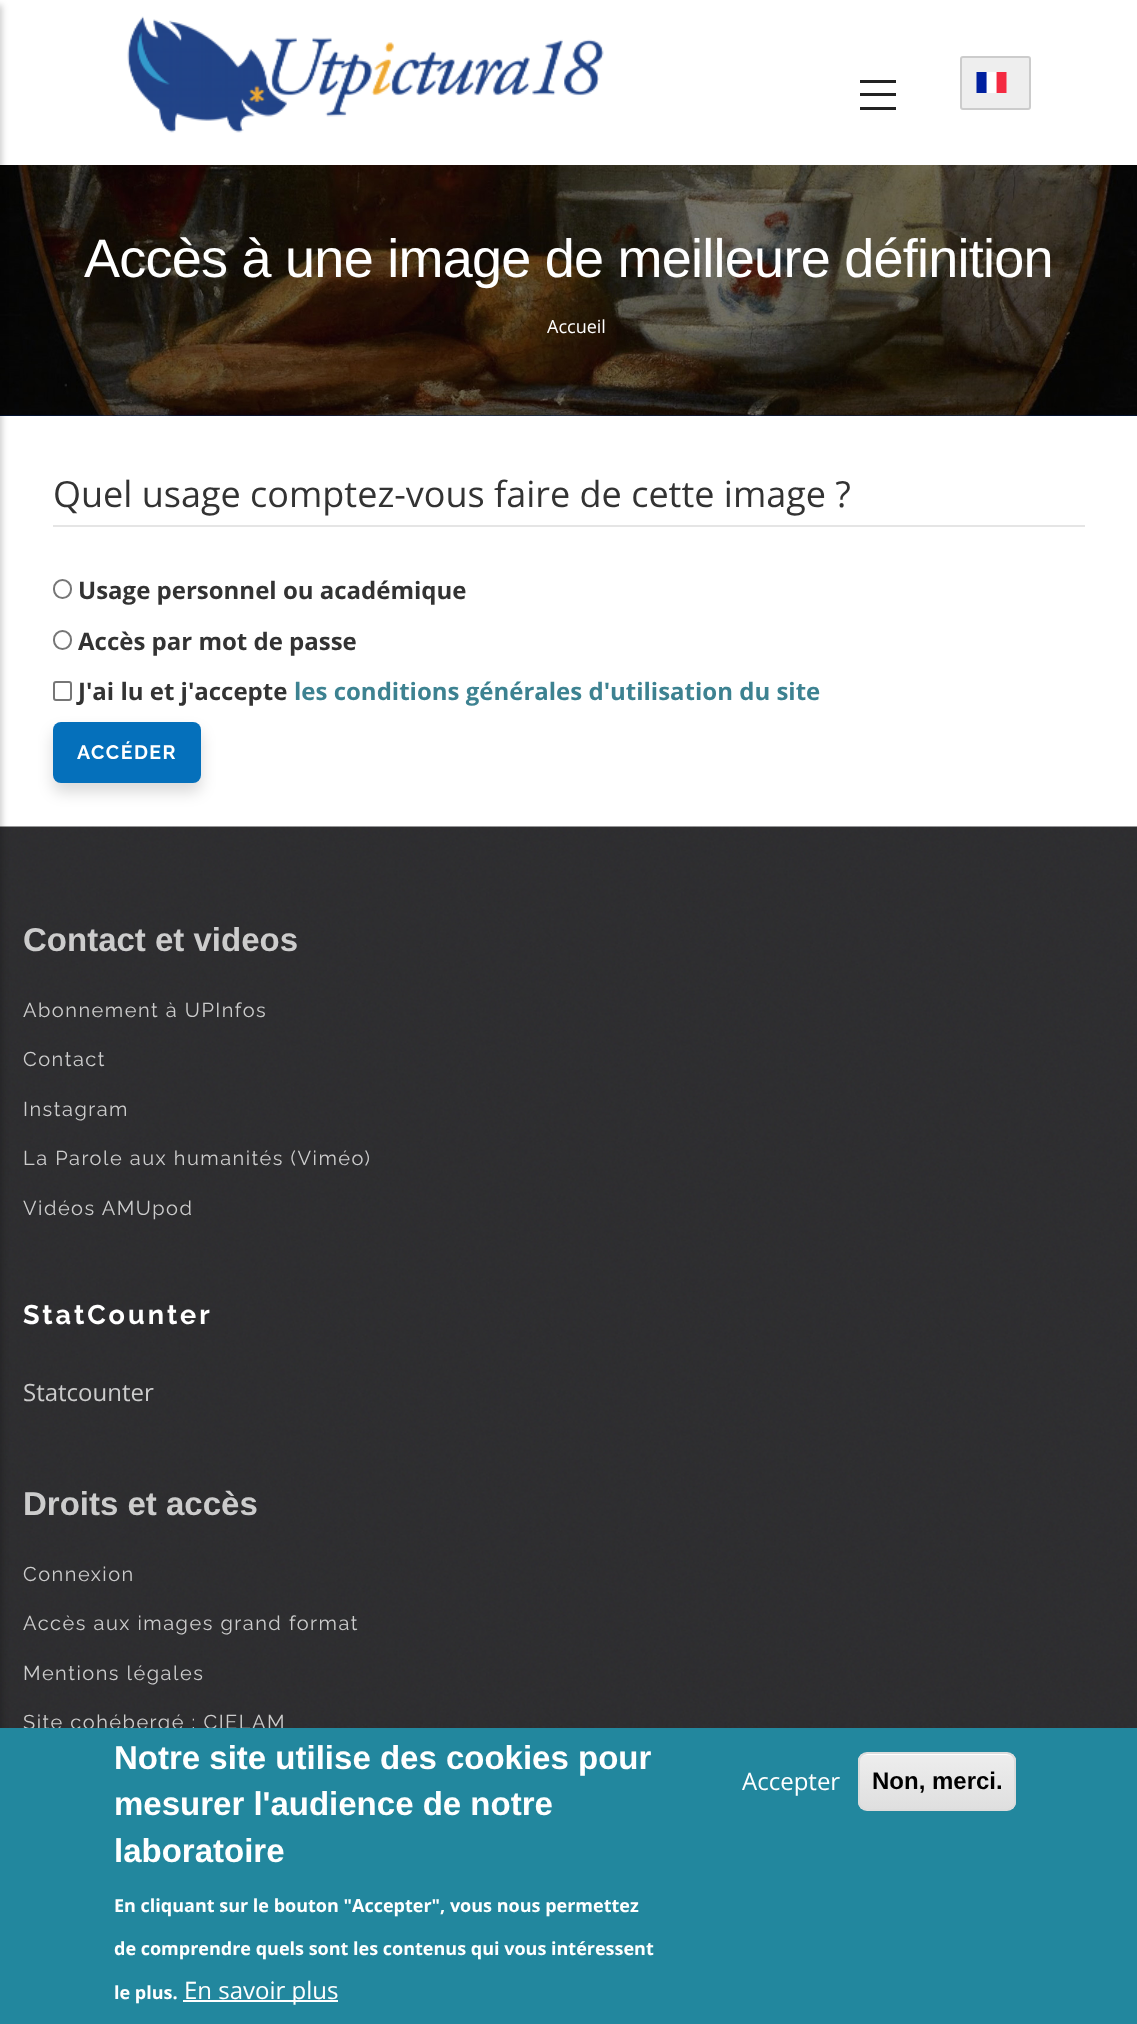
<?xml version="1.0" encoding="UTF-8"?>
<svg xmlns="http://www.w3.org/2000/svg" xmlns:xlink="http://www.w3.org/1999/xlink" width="1137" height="2024">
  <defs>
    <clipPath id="clip1"><rect x="858" y="1752" width="158" height="59" rx="9" /></clipPath>
    <linearGradient id="g1" gradientUnits="userSpaceOnUse" x1="937" y1="1754" x2="937" y2="1809"><stop offset="0.05" stop-color="#ededed" /><stop offset="1" stop-color="#dfdfdf" /></linearGradient>
  </defs>
  <rect width="100%" height="100%" fill="#ffffff" />
  <rect y="415" width="1137" height="1" fill="#01205a" />
  <image x="0" y="165" width="1137" height="251" xlink:href="image3.png" />
  <image x="0" y="826" width="1137" height="902" xlink:href="image4.png" />
  <rect x="-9" y="5" width="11" height="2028" fill="#000000" fill-opacity="0.2" filter="blur(3px)" />
  <rect x="860" y="80" width="36" height="3" fill="#222222" />
  <rect x="860" y="93" width="36" height="3" fill="#222222" />
  <rect x="860" y="107" width="36" height="3" fill="#222222" />
  <image x="127" y="16" width="477" height="117" xlink:href="image1.png" />
  <rect x="961" y="57" width="69" height="52" rx="2" fill="#eeeeee" stroke="#cccccc" stroke-width="2" />
  <image x="976" y="72" width="31" height="21" xlink:href="image2.png" />
  <rect x="53" y="525" width="1032" height="2" fill="#e5e5e5" />
  <rect x="54" y="580" width="17" height="18" rx="8.5" fill="none" stroke="#767676" stroke-width="2" />
  <rect x="54" y="631" width="17" height="18" rx="8.5" fill="none" stroke="#767676" stroke-width="2" />
  <rect x="54" y="682" width="17" height="18" rx="2" fill="none" stroke="#767676" stroke-width="2" />
  <rect x="53" y="731" width="148" height="61" rx="8" fill="#000000" fill-opacity="0.15" filter="blur(7.5px)" />
  <rect x="53" y="722" width="148" height="61" rx="8" fill="#0570bb" />
  <text x="84" y="277" style="font-family: Liberation Sans; font-size: 54px; letter-spacing: -0.75px; fill: #ffffff">Accès à une image de meilleure définition</text>
  <text x="547" y="333" style="font-family: Open Sans; font-size: 18px; fill: #ffffff">Accueil</text>
  <text x="53" y="507" style="font-family: Open Sans; font-size: 36px; fill: #333333">Quel usage comptez-vous faire de cette image ?</text>
  <text x="78" y="599" style="font-family: Open Sans; font-size: 24px; font-weight: bold; fill: #333333">Usage personnel ou académique</text>
  <text x="78" y="650" style="font-family: Open Sans; font-size: 24px; font-weight: bold; fill: #333333">Accès par mot de passe</text>
  <text x="78" y="700" style="font-family: Open Sans; font-size: 24px; font-weight: bold; fill: #333333">J'ai lu et j'accepte</text>
  <text x="294" y="700" style="font-family: Open Sans; font-size: 24px; font-weight: bold; fill: #3d8291">les conditions générales d'utilisation du site</text>
  <text x="77" y="759" style="font-family: Raleway; font-size: 19.5px; font-weight: bold; letter-spacing: 1.5px; fill: #ffffff">ACCÉDER</text>
  <text x="23" y="951" style="font-family: Liberation Sans; font-size: 33px; font-weight: bold; fill: #cccccc">Contact et videos</text>
  <text x="23" y="1017" style="font-family: Raleway; font-size: 20px; letter-spacing: 1.5px; fill: #cccccc">Abonnement à UPInfos</text>
  <text x="23" y="1066" style="font-family: Raleway; font-size: 20px; letter-spacing: 1.5px; fill: #cccccc">Contact</text>
  <text x="23" y="1116" style="font-family: Raleway; font-size: 20px; letter-spacing: 1.5px; fill: #cccccc">Instagram</text>
  <text x="23" y="1165" style="font-family: Raleway; font-size: 20px; letter-spacing: 1.5px; fill: #cccccc">La Parole aux humanités (Viméo)</text>
  <text x="23" y="1215" style="font-family: Raleway; font-size: 20px; letter-spacing: 1.5px; fill: #cccccc">Vidéos AMUpod</text>
  <text x="23" y="1324" style="font-family: Raleway; font-size: 27px; font-weight: bold; letter-spacing: 3px; fill: #ffffff">StatCounter</text>
  <text x="23" y="1401" style="font-family: Open Sans; font-size: 24px; fill: #cccccc">Statcounter</text>
  <text x="23" y="1515" style="font-family: Liberation Sans; font-size: 33px; font-weight: bold; fill: #cccccc">Droits et accès</text>
  <text x="23" y="1581" style="font-family: Raleway; font-size: 20px; letter-spacing: 1.5px; fill: #cccccc">Connexion</text>
  <text x="23" y="1630" style="font-family: Raleway; font-size: 20px; letter-spacing: 1.5px; fill: #cccccc">Accès aux images grand format</text>
  <text x="23" y="1680" style="font-family: Raleway; font-size: 20px; letter-spacing: 1.5px; fill: #cccccc">Mentions légales</text>
  <text x="23" y="1729" style="font-family: Raleway; font-size: 20px; letter-spacing: 1.5px; fill: #cccccc">Site cohébergé : CIELAM</text>
  <rect y="1728" width="1137" height="296" fill="#22879e" />
  <text x="114" y="1769" style="font-family: Liberation Sans; font-size: 33px; font-weight: bold; fill: #ffffff">Notre site utilise des cookies pour</text>
  <text x="114" y="1815" style="font-family: Liberation Sans; font-size: 33px; font-weight: bold; fill: #ffffff">mesurer l'audience de notre</text>
  <text x="114" y="1862" style="font-family: Liberation Sans; font-size: 33px; font-weight: bold; fill: #ffffff">laboratoire</text>
  <text x="114" y="1912" style="font-family: Open Sans; font-size: 18px; font-weight: bold; fill: #ffffff">En cliquant sur le bouton "Accepter", vous nous permettez</text>
  <text x="114" y="1955" style="font-family: Open Sans; font-size: 18px; font-weight: bold; fill: #ffffff">de comprendre quels sont les contenus qui vous intéressent</text>
  <text x="114" y="1999" style="font-family: Open Sans; font-size: 18px; font-weight: bold; fill: #ffffff">le plus.</text>
  <rect x="183" y="2000" width="155" height="2" fill="#ffffff" />
  <text x="184" y="1999" style="font-family: Open Sans; font-size: 24px; fill: #ffffff">En savoir plus</text>
  <text x="742" y="1790" style="font-family: Open Sans; font-size: 24px; fill: #ffffff">Accepter</text>
  <g clip-path="url(#clip1)">
    <rect x="858" y="1754" width="158" height="55" fill="url(#g1)" />
  </g>
  <path d="M 867 1755 h 139 c 5 0 8 3 8 7 c 0 -4 -4 -8 -8 -8 h -138 c -4 0 -8 4 -8 8 c 0 -4 3 -7 7 -7 z" fill="#ffffff" />
  <rect x="859" y="1753" width="156" height="57" rx="8" fill="none" stroke="#dcdcdc" stroke-width="2" />
  <text x="872" y="1789" style="font-family: Liberation Sans; font-size: 24px; font-weight: bold; fill: #000000">Non, merci.</text>
</svg>
